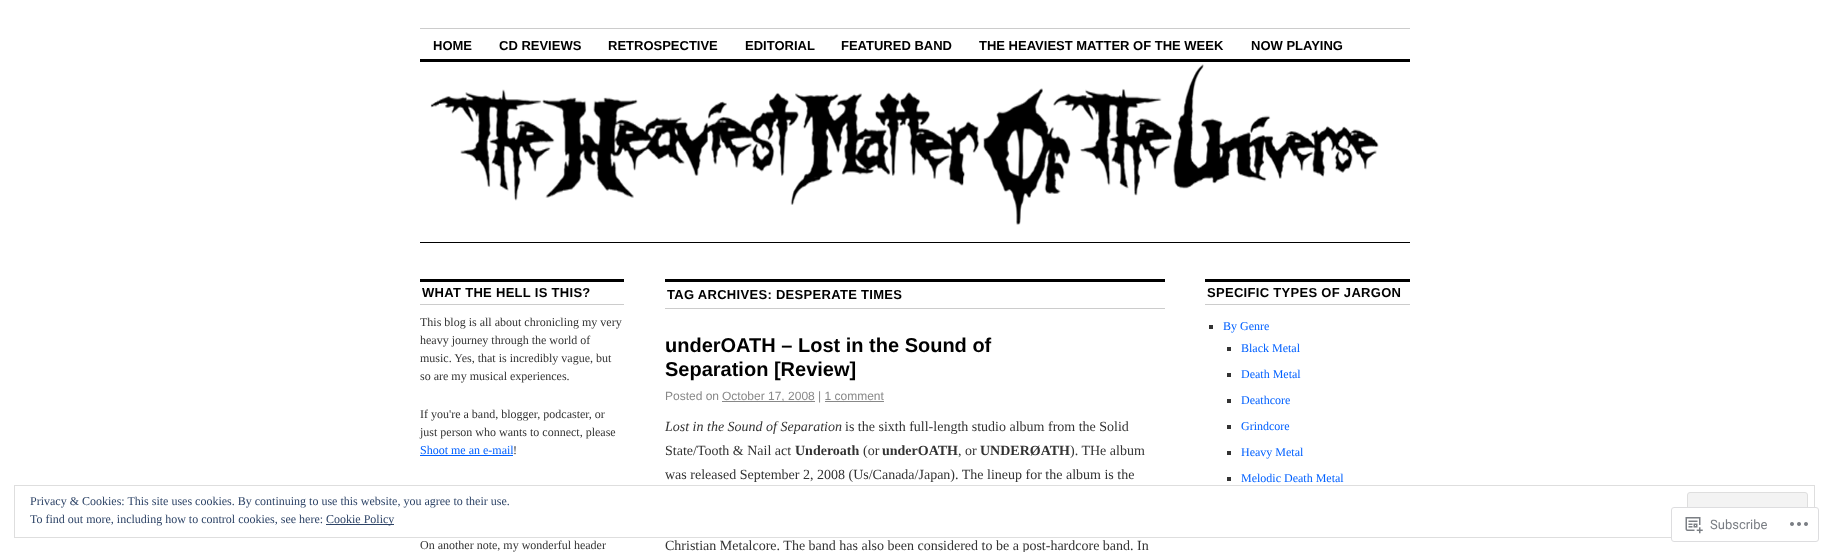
<?xml version="1.0" encoding="UTF-8"?>
<svg xmlns="http://www.w3.org/2000/svg" xmlns:xlink="http://www.w3.org/1999/xlink" width="1829" height="552">
  <rect width="100%" height="100%" fill="#ffffff" />
  <rect x="14.5" y="485.5" width="1800" height="52" fill="none" stroke="#dedede" />
  <rect x="1687.5" y="492.5" width="120" height="38" rx="2.5" fill="#f3f3f3" stroke="#dedede" />
  <rect x="326" y="524" width="68" height="1" fill="#2e4467" />
  <rect x="420" y="28" width="990" height="1" fill="#cccccc" />
  <rect x="420" y="59" width="990" height="3" fill="#000000" />
  <image x="430" y="64" width="949" height="161" xlink:href="image1.png" />
  <rect x="420" y="242" width="990" height="1" fill="#000000" />
  <rect x="420" y="279" width="204" height="3" fill="#000000" />
  <rect x="420" y="304" width="204" height="1" fill="#cccccc" />
  <rect x="420" y="455" width="93" height="1" fill="#0060ff" />
  <rect x="665" y="279" width="500" height="3" fill="#000000" />
  <rect x="665" y="308" width="500" height="1" fill="#cccccc" />
  <rect x="722" y="401" width="93" height="1" fill="#888888" />
  <rect x="825" y="401" width="59" height="1" fill="#888888" />
  <rect x="1205" y="279" width="205" height="3" fill="#000000" />
  <rect x="1205" y="304" width="205" height="1" fill="#cccccc" />
  <rect x="1209" y="325" width="4" height="4" fill="#333333" />
  <rect x="1227" y="347" width="4" height="4" fill="#333333" />
  <rect x="1227" y="373" width="4" height="4" fill="#333333" />
  <rect x="1227" y="399" width="4" height="4" fill="#333333" />
  <rect x="1227" y="425" width="4" height="4" fill="#333333" />
  <rect x="1227" y="451" width="4" height="4" fill="#333333" />
  <rect x="1227" y="477" width="4" height="4" fill="#333333" />
  <rect x="1671" y="507" width="148" height="35" rx="3" fill="#ffffff" fill-opacity="0.98" />
  <rect x="1671.5" y="507.5" width="147" height="34" rx="2.5" fill="none" stroke="#dcdcde" stroke-opacity="0.98" />
  <image x="1685" y="517" width="18" height="17" xlink:href="image2.png" />
  <image x="1790" y="522" width="18" height="4" xlink:href="image3.png" />
  <text x="30" y="505" style="font-family: Liberation Serif; font-size: 12px; fill: #2e4467">Privacy &amp; Cookies: This site uses cookies. By continuing to use this website, you agree to their use.</text>
  <text x="30" y="523" style="font-family: Liberation Serif; font-size: 12px; fill: #2e4467">To find out more, including how to control cookies, see here:</text>
  <text x="326" y="523" style="font-family: Liberation Serif; font-size: 12px; fill: #2e4467">Cookie Policy</text>
  <text x="433" y="50" style="font-family: Liberation Sans; font-size: 13px; font-weight: bold; fill: #000000">HOME</text>
  <text x="499" y="50" style="font-family: Liberation Sans; font-size: 13px; font-weight: bold; fill: #000000">CD REVIEWS</text>
  <text x="608" y="50" style="font-family: Liberation Sans; font-size: 13px; font-weight: bold; fill: #000000">RETROSPECTIVE</text>
  <text x="745" y="50" style="font-family: Liberation Sans; font-size: 13px; font-weight: bold; fill: #000000">EDITORIAL</text>
  <text x="841" y="50" style="font-family: Liberation Sans; font-size: 13px; font-weight: bold; fill: #000000">FEATURED BAND</text>
  <text x="979" y="50" style="font-family: Liberation Sans; font-size: 13px; font-weight: bold; fill: #000000">THE HEAVIEST MATTER OF THE WEEK</text>
  <text x="1251" y="50" style="font-family: Liberation Sans; font-size: 13px; font-weight: bold; fill: #000000">NOW PLAYING</text>
  <text x="422" y="297" style="font-family: Liberation Sans; font-size: 13px; font-weight: bold; letter-spacing: 0.3px; fill: #000000">WHAT THE HELL IS THIS?</text>
  <text x="420" y="326" style="font-family: Liberation Serif; font-size: 12px; fill: #333333">This blog is all about chronicling my very</text>
  <text x="420" y="344" style="font-family: Liberation Serif; font-size: 12px; fill: #333333">heavy journey through the world of</text>
  <text x="420" y="362" style="font-family: Liberation Serif; font-size: 12px; fill: #333333">music. Yes, that is incredibly vague, but</text>
  <text x="420" y="380" style="font-family: Liberation Serif; font-size: 12px; fill: #333333">so are my musical experiences.</text>
  <text x="420" y="418" style="font-family: Liberation Serif; font-size: 12px; fill: #333333">If you're a band, blogger, podcaster, or</text>
  <text x="420" y="436" style="font-family: Liberation Serif; font-size: 12px; fill: #333333">just person who wants to connect, please</text>
  <text x="420" y="454" style="font-family: Liberation Serif; font-size: 12px; fill: #0060ff">Shoot me an e-mail</text>
  <text x="513" y="454" style="font-family: Liberation Serif; font-size: 12px; fill: #333333">!</text>
  <text x="420" y="549" style="font-family: Liberation Serif; font-size: 12px; fill: #333333">On another note, my wonderful header</text>
  <text x="667" y="299" style="font-family: Liberation Sans; font-size: 13px; font-weight: bold; letter-spacing: 0.3px; fill: #000000">TAG ARCHIVES: DESPERATE TIMES</text>
  <text x="665" y="352" style="font-family: Liberation Sans; font-size: 20px; font-weight: bold; fill: #000000">underOATH – Lost in the Sound of</text>
  <text x="665" y="376" style="font-family: Liberation Sans; font-size: 20px; font-weight: bold; fill: #000000">Separation [Review]</text>
  <text x="665" y="400" style="font-family: Liberation Sans; font-size: 12px; fill: #888888">Posted on</text>
  <text x="722" y="400" style="font-family: Liberation Sans; font-size: 12px; fill: #888888">October 17, 2008 | 1 comment</text>
  <text x="665" y="431" style="font-family: Liberation Serif; font-size: 14px; font-style: italic; fill: #333333">Lost in the Sound of Separation</text>
  <text x="845" y="431" style="font-family: Liberation Serif; font-size: 14px; fill: #333333">is the sixth full-length studio album from the Solid</text>
  <text x="665" y="455" style="font-family: Liberation Serif; font-size: 14px; fill: #333333">State/Tooth &amp; Nail act</text>
  <text x="795" y="455" style="font-family: Liberation Serif; font-size: 14px; font-weight: bold; fill: #333333">Underoath</text>
  <text x="863" y="455" style="font-family: Liberation Serif; font-size: 14px; fill: #333333">(or</text>
  <text x="882" y="455" style="font-family: Liberation Serif; font-size: 14px; font-weight: bold; fill: #333333">underOATH</text>
  <text x="958" y="455" style="font-family: Liberation Serif; font-size: 14px; fill: #333333">, or</text>
  <text x="980" y="455" style="font-family: Liberation Serif; font-size: 14px; font-weight: bold; fill: #333333">UNDERØATH</text>
  <text x="1070" y="455" style="font-family: Liberation Serif; font-size: 14px; fill: #333333">). THe album</text>
  <text x="665" y="479" style="font-family: Liberation Serif; font-size: 14px; fill: #333333">was released September 2, 2008 (Us/Canada/Japan). The lineup for the album is the</text>
  <text x="665" y="550" style="font-family: Liberation Serif; font-size: 14px; fill: #333333">Christian Metalcore. The band has also been considered to be a post-hardcore band. In</text>
  <text x="1207" y="297" style="font-family: Liberation Sans; font-size: 13px; font-weight: bold; letter-spacing: 0.3px; fill: #000000">SPECIFIC TYPES OF JARGON</text>
  <text x="1223" y="330" style="font-family: Liberation Serif; font-size: 12px; fill: #0060ff">By Genre</text>
  <text x="1241" y="352" style="font-family: Liberation Serif; font-size: 12px; fill: #0060ff">Black Metal</text>
  <text x="1241" y="378" style="font-family: Liberation Serif; font-size: 12px; fill: #0060ff">Death Metal</text>
  <text x="1241" y="404" style="font-family: Liberation Serif; font-size: 12px; fill: #0060ff">Deathcore</text>
  <text x="1241" y="430" style="font-family: Liberation Serif; font-size: 12px; fill: #0060ff">Grindcore</text>
  <text x="1241" y="456" style="font-family: Liberation Serif; font-size: 12px; fill: #0060ff">Heavy Metal</text>
  <text x="1241" y="482" style="font-family: Liberation Serif; font-size: 12px; fill: #0060ff">Melodic Death Metal</text>
  <text x="1710" y="529" style="font-family: Roboto; font-size: 13px; fill: #7a7e84">Subscribe</text>
</svg>
